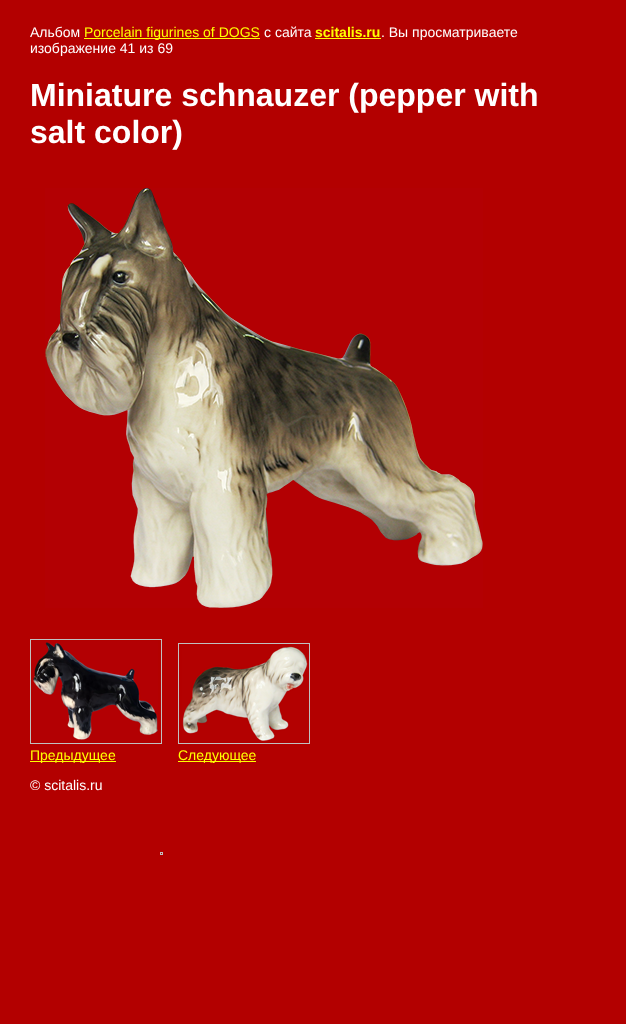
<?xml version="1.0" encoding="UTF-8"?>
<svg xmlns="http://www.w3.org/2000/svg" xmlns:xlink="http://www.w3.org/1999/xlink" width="626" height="1024">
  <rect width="100%" height="100%" fill="#b30000" />
  <rect x="84" y="38" width="176" height="1" fill="#ffff00" />
  <rect x="315" y="38" width="66" height="1" fill="#ffff00" />
  <image x="45" y="188" width="438" height="420" xlink:href="image1.png" />
  <rect x="30.5" y="639.5" width="131" height="104" fill="none" stroke="#c0c0c0" />
  <image x="33" y="641" width="125" height="99" xlink:href="image2.png" />
  <rect x="30" y="761" width="86" height="1" fill="#ffff00" />
  <rect x="178.5" y="643.5" width="131" height="100" fill="none" stroke="#c0c0c0" />
  <image x="182" y="646" width="126" height="95" xlink:href="image3.png" />
  <rect x="178" y="761" width="78" height="1" fill="#ffff00" />
  <rect x="160.5" y="852.5" width="2" height="2" fill="none" stroke="#c0c0c0" />
  <text x="30" y="37" style="font-family: Liberation Sans; font-size: 14px; fill: #ffffff">Альбом</text>
  <text x="84" y="37" style="font-family: Liberation Sans; font-size: 14px; fill: #ffff00">Porcelain figurines of DOGS</text>
  <text x="264" y="37" style="font-family: Liberation Sans; font-size: 14px; fill: #ffffff">с сайта</text>
  <text x="315" y="37" style="font-family: Liberation Sans; font-size: 14px; font-weight: bold; fill: #ffff00">scitalis.ru</text>
  <text x="381" y="37" style="font-family: Liberation Sans; font-size: 14px; fill: #ffffff">. Вы просматриваете</text>
  <text x="30" y="53" style="font-family: Liberation Sans; font-size: 14px; fill: #ffffff">изображение 41 из 69</text>
  <text x="30" y="106" style="font-family: Liberation Sans; font-size: 32px; font-weight: bold; fill: #ffffff">Miniature schnauzer (pepper with</text>
  <text x="30" y="143" style="font-family: Liberation Sans; font-size: 32px; font-weight: bold; fill: #ffffff">salt color)</text>
  <text x="30" y="760" style="font-family: Liberation Sans; font-size: 14px; fill: #ffff00">Предыдущее</text>
  <text x="178" y="760" style="font-family: Liberation Sans; font-size: 14px; fill: #ffff00">Следующее</text>
  <text x="30" y="790" style="font-family: Liberation Sans; font-size: 14px; fill: #ffffff">© scitalis.ru</text>
</svg>
